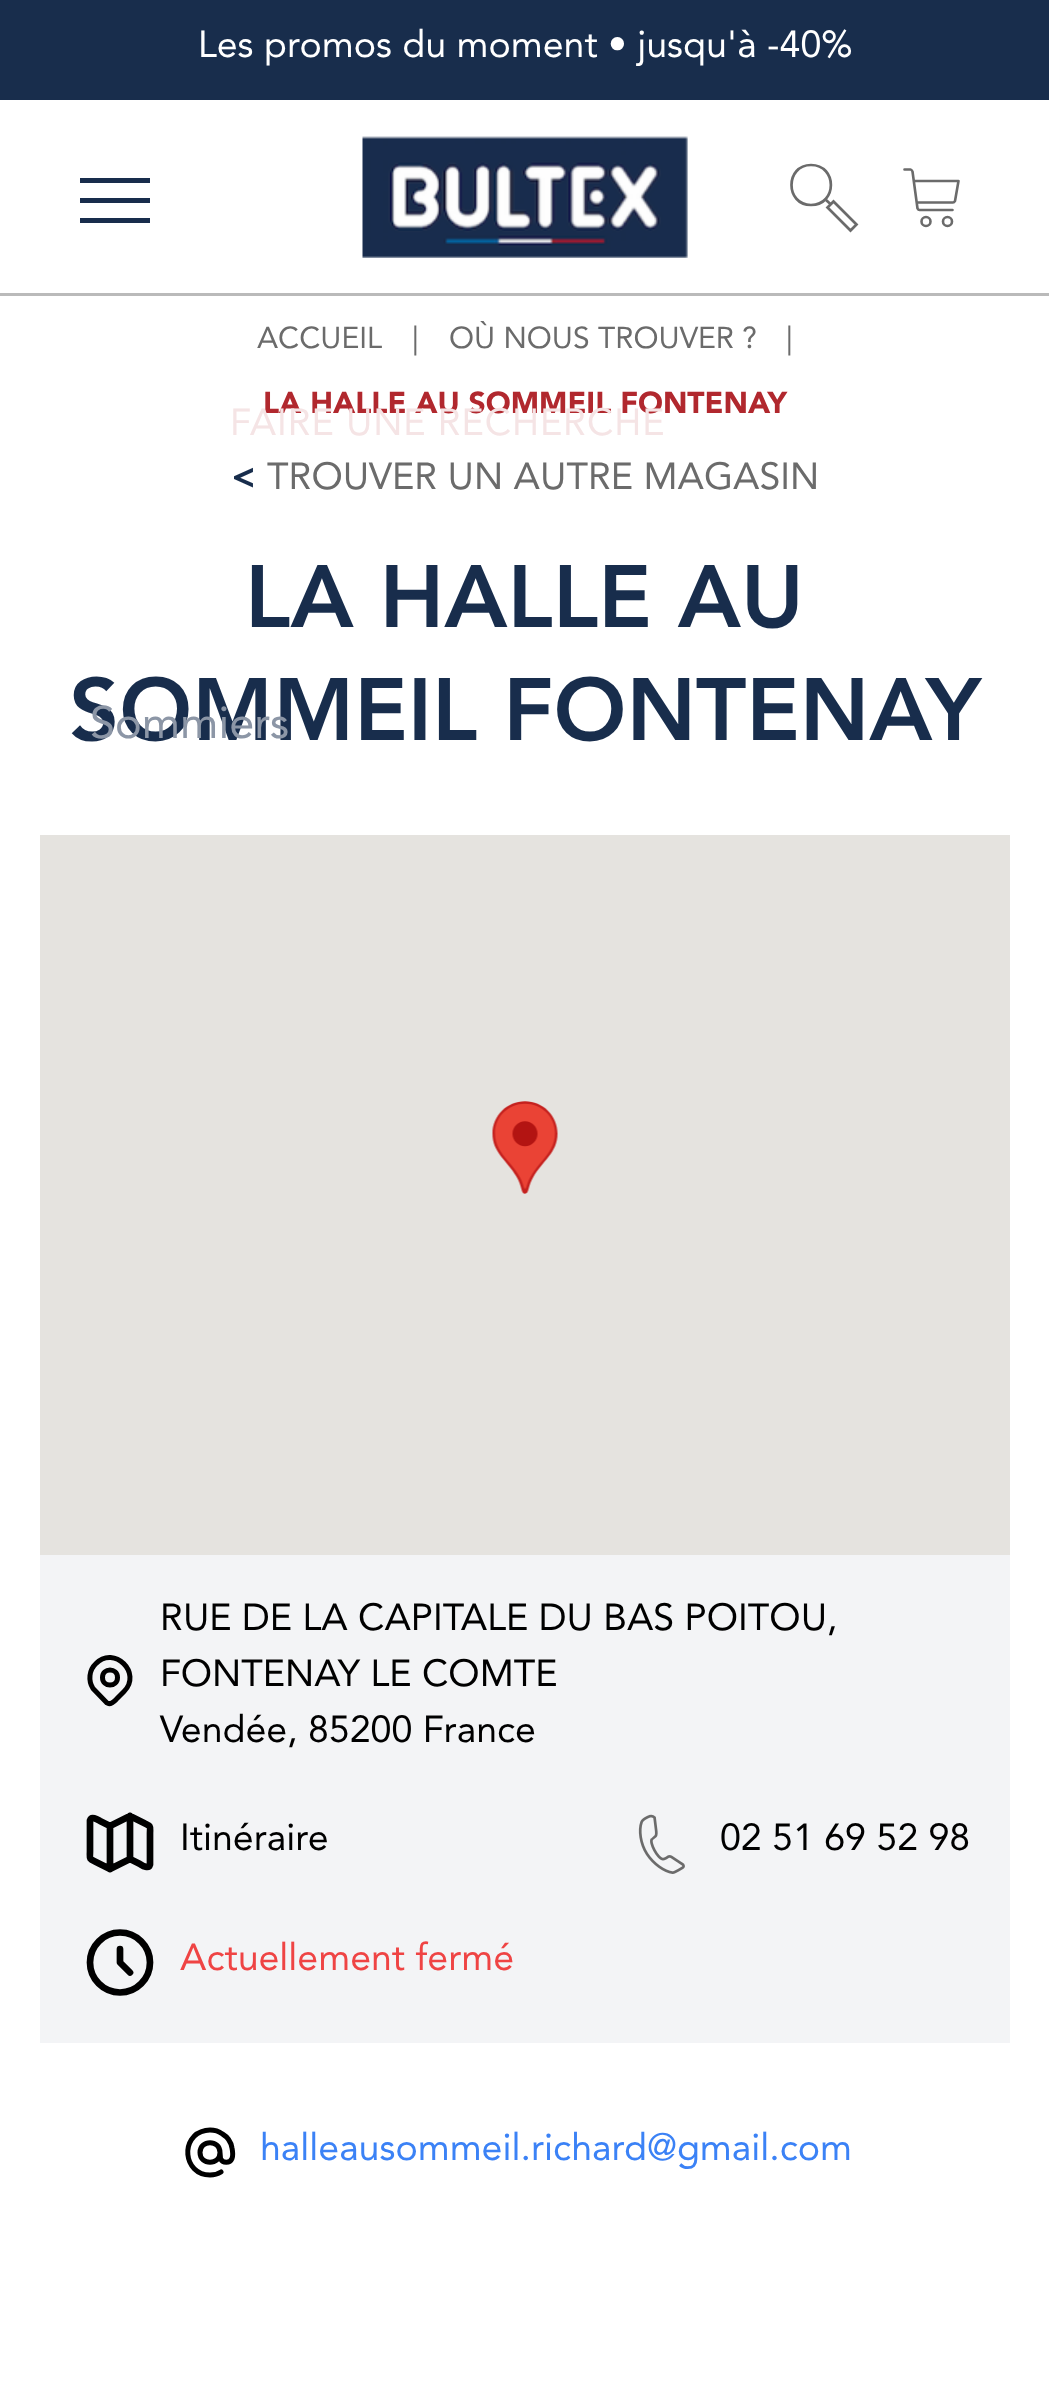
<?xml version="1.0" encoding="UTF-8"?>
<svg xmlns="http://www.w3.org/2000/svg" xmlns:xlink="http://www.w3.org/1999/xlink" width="1049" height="2391">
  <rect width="100%" height="100%" fill="#ffffff" />
  <rect width="1049" height="100" fill="#182d4c" />
  <rect y="293" width="1049" height="3" fill="#bababa" />
  <rect x="80" y="178" width="70" height="5" fill="#182d4c" />
  <rect x="80" y="198" width="70" height="5" fill="#182d4c" />
  <rect x="80" y="218" width="70" height="5" fill="#182d4c" />
  <image x="362" y="136" width="326" height="122" xlink:href="image1.png" />
  <path d="M 811 165 c -26 0 -26 40 0 40 c 26.5 0 26.5 -40 0 -40 z" fill="none" stroke="#6b6b6b" stroke-width="2.7" />
  <path d="M 856.5 224.5 l -23 -23 l -6 6 l 23 23 z m -30.5 -24.5 l 5 4.5" fill="none" stroke="#6b6b6b" stroke-width="2.7" />
  <circle cx="926" cy="221.5" r="4.5" fill="none" stroke="#6b6b6b" stroke-width="2.6" />
  <circle cx="947.5" cy="221.5" r="4.5" fill="none" stroke="#6b6b6b" stroke-width="2.6" />
  <path d="M 952.5 210 h -33 c -1 0 -1.5 -0.5 -2 -1.5 l -5 -37 c -0.5 -1 -1 -2 -2 -2 h -6 m 9.5 11.5 h 44.5 l -3.5 20 c -0.5 1 -1 1.5 -2 1.5 h -36" fill="none" stroke="#6b6b6b" stroke-width="2.6" stroke-linecap="round" stroke-linejoin="round" />
  <rect x="40" y="835" width="970" height="720" fill="#e5e3df" />
  <image x="492" y="1101" width="66" height="93" xlink:href="image2.png" />
  <rect x="40" y="1555" width="970" height="488" fill="#f3f4f6" />
  <path d="M 124 1691.5 l -7 7 c -2.5 2.5 -6 7 -10 4.5 l -14 -14.5 c -5 -8 -4 -18.5 3 -25 c 18 -18.5 46.5 9.5 28 28 z m -6.5 -14 c 0 10 -15 10 -15 0 c 0 -10 15 -10 15 0 z" fill="none" stroke="#000000" stroke-width="5" stroke-linecap="round" stroke-linejoin="round" />
  <path d="M 110 1869 l -15 -7.5 c -6.5 -3 -5 -3 -5 -10.5 v -30.5 c 1.5 -5 7.5 -1 10 0.5 l 10 5 m 0 43 l 20 -10 m -20 10 v -43 m 20 33 l 10 5 c 2.5 1.5 8.5 5.5 10 0.5 v -30.5 c 0 -7.5 1.5 -7.5 -5 -10.5 l -15 -7.5 m 0 43 v -43 m 0 0 l -20 10" fill="none" stroke="#000000" stroke-width="6.7" stroke-linecap="round" stroke-linejoin="round" />
  <image x="638" y="1814" width="47" height="60" xlink:href="image3.png" />
  <path d="M 120 1949 v 13.5 l 10 10 m 20 -10 c 0 16.5 -13.5 30 -30 30 c -16.5 0 -30 -13.5 -30 -30 c 0 -16.5 13.5 -30 30 -30 c 16.5 0 30 13.5 30 30 z" fill="none" stroke="#000000" stroke-width="6.7" stroke-linecap="round" stroke-linejoin="round" />
  <path d="M 220 2152.5 c 0 -13 -20 -13 -20 0 c 0 13 20 13 20 0 z m 0 0 l 0.5 6 c 2 5 9.5 5 11.5 0 c 1 -2.5 0.5 -8 0 -10.5 c -1 -6 -4.5 -11 -9.5 -14 c -5 -3.5 -11 -4.5 -17 -3.5 c -26 5 -22.5 44.5 4.5 44.5 m 11 -3 c -3 2 -7 3 -11 3" fill="none" stroke="#000000" stroke-width="5" stroke-linecap="round" stroke-linejoin="round" />
  <text x="198" y="57" style="font-family: Avenir; font-size: 37.5px; fill: #ffffff">Les promos du moment • jusqu'à -40%</text>
  <text x="257" y="348" style="font-family: Avenir; font-size: 30px; fill: #6b6b6b">ACCUEIL</text>
  <text x="412" y="348" style="font-family: Avenir; font-size: 30px; fill: #6b6b6b">|</text>
  <text x="449" y="348" style="font-family: Avenir; font-size: 30px; fill: #6b6b6b">OÙ NOUS TROUVER ?</text>
  <text x="786" y="348" style="font-family: Avenir; font-size: 30px; fill: #6b6b6b">|</text>
  <text x="263" y="413" style="font-family: Avenir; font-size: 30px; font-weight: 900; fill: #b1282e">LA HALLE AU SOMMEIL FONTENAY</text>
  <text x="230" y="435" style="font-family: Avenir; font-size: 37.5px; letter-spacing: 0.9px; fill: #f5e4e5">FAIRE UNE RECHERCHE</text>
  <text x="231" y="489" style="font-family: 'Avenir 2'; font-size: 37.5px; font-weight: 900; fill: #182d4c">&lt;</text>
  <text x="267" y="489" style="font-family: Avenir; font-size: 37.5px; fill: #6b6b6b">TROUVER UN AUTRE MAGASIN</text>
  <text x="245" y="627" style="font-family: 'Avenir 2'; font-size: 87.5px; font-weight: 900; fill: #182d4c">LA HALLE AU</text>
  <text x="69" y="740" style="font-family: 'Avenir 2'; font-size: 87.5px; font-weight: 900; fill: #182d4c">SOMMEIL FONTENAY</text>
  <text x="90" y="738" style="font-family: Avenir; font-size: 45px; fill: #8c96a6">Sommiers</text>
  <text x="160" y="1630" style="font-family: Avenir; font-size: 37.5px; fill: #000000">RUE DE LA CAPITALE DU BAS POITOU,</text>
  <text x="160" y="1686" style="font-family: Avenir; font-size: 37.5px; fill: #000000">FONTENAY LE COMTE</text>
  <text x="160" y="1742" style="font-family: Avenir; font-size: 37.5px; fill: #000000">Vendée, 85200 France</text>
  <text x="180" y="1850" style="font-family: Avenir; font-size: 37.5px; fill: #000000">Itinéraire</text>
  <text x="720" y="1850" style="font-family: Avenir; font-size: 37.5px; fill: #000000">02 51 69 52 98</text>
  <text x="180" y="1970" style="font-family: Avenir; font-size: 37.5px; fill: #ef4444">Actuellement fermé</text>
  <text x="260" y="2160" style="font-family: Avenir; font-size: 37.5px; fill: #3b82f6">halleausommeil.richard@gmail.com</text>
</svg>
